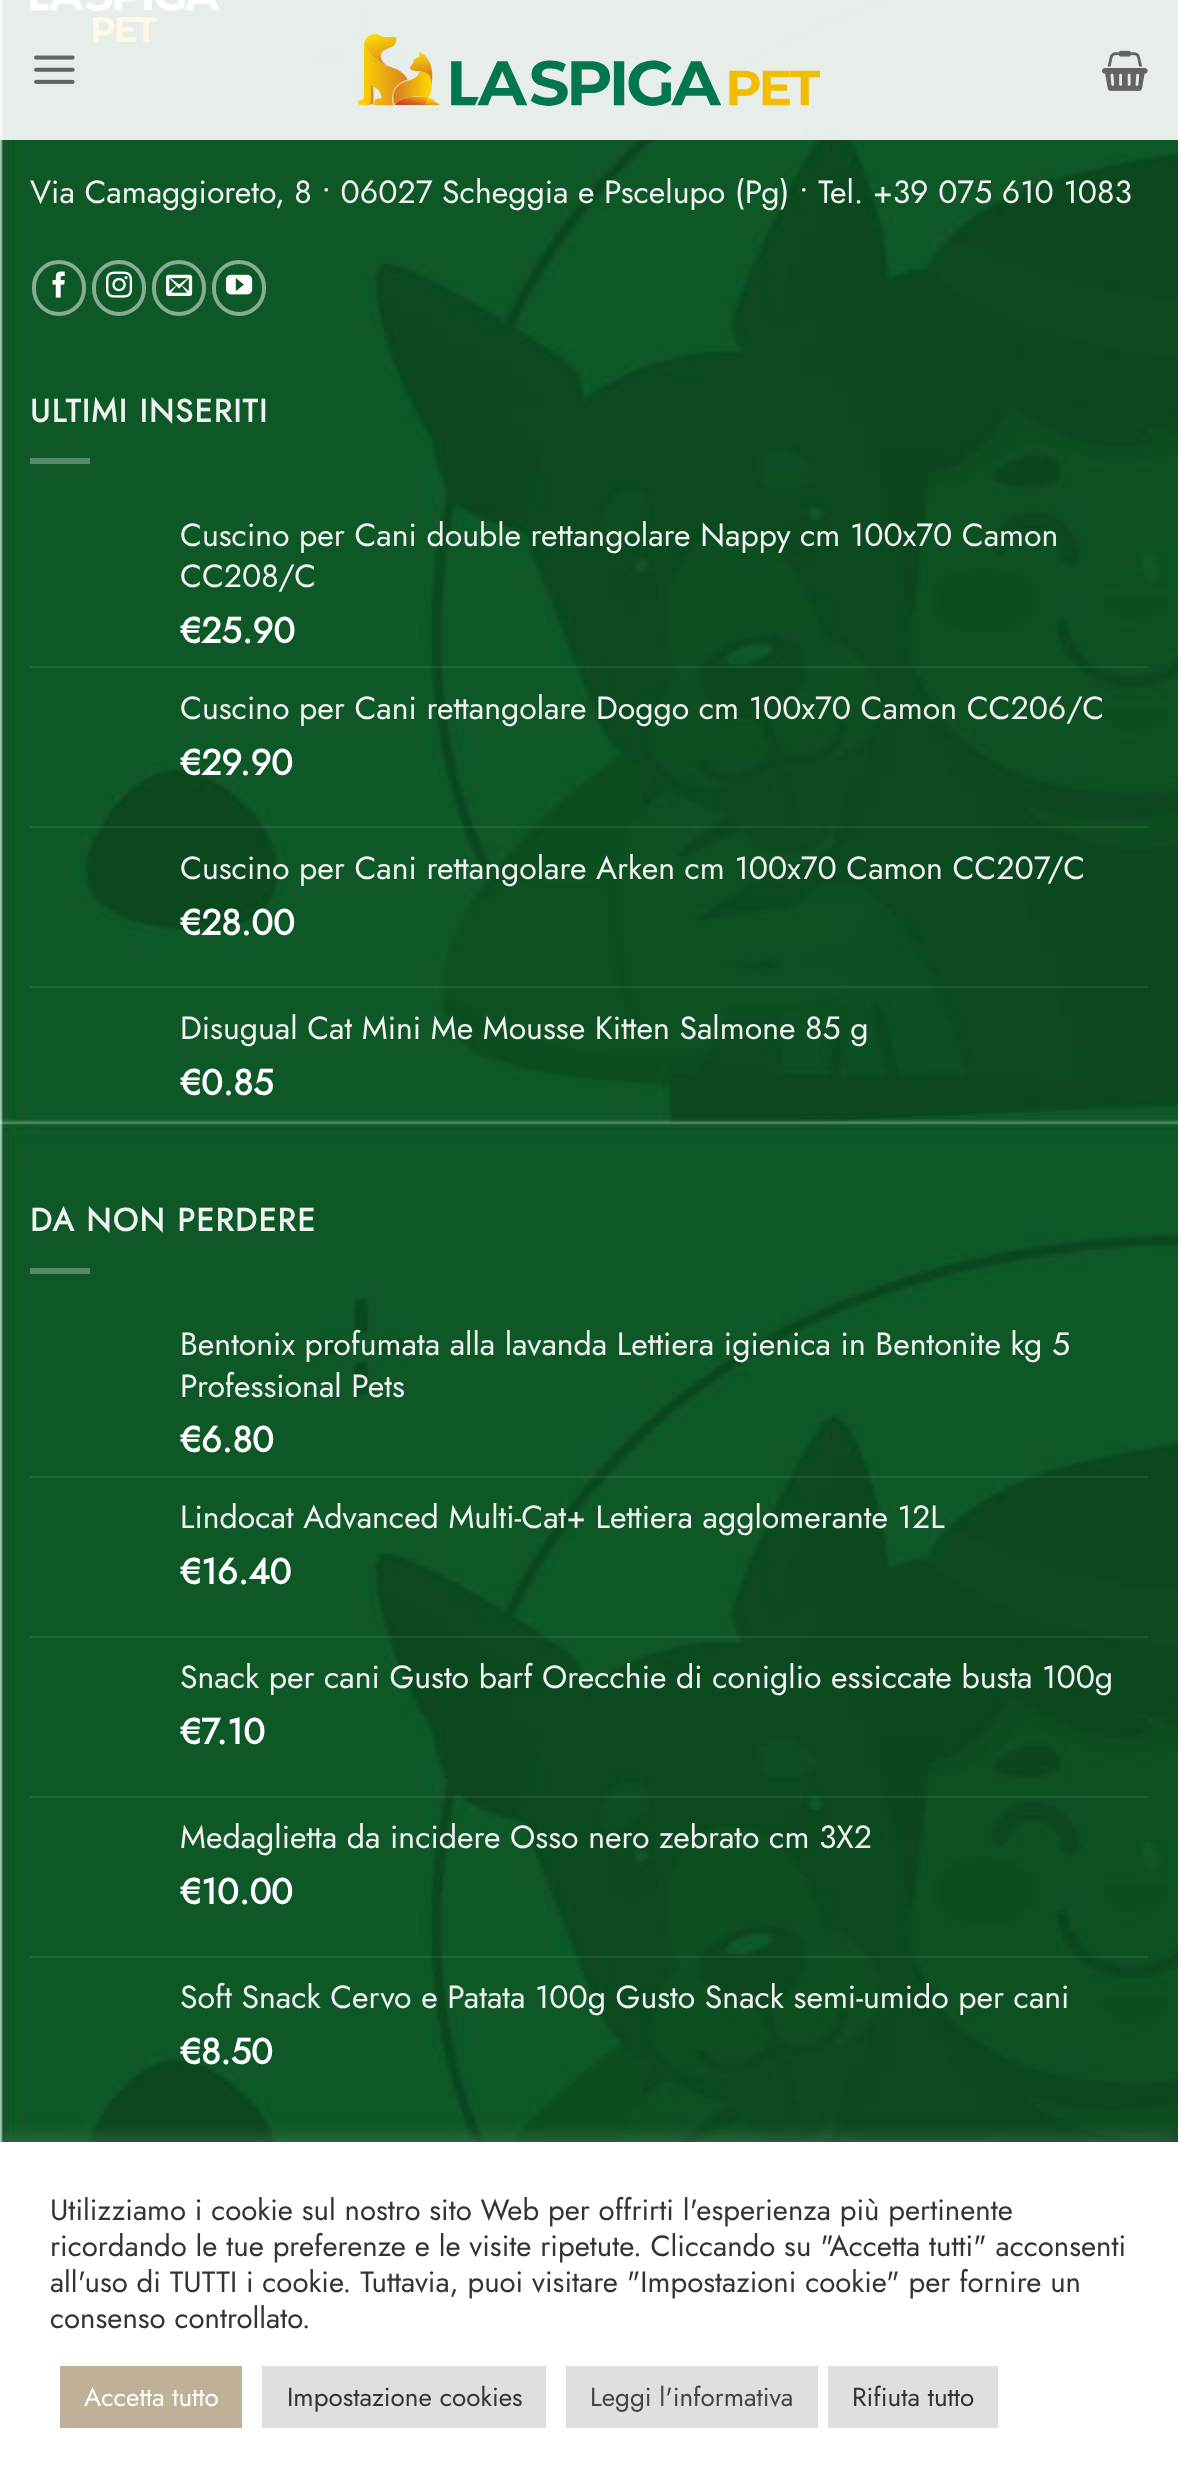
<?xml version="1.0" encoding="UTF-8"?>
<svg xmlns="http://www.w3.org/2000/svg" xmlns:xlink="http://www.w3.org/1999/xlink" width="1178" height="2487">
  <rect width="100%" height="100%" fill="#ffffff" />
  <image x="0" y="0" width="1178" height="2142" xlink:href="image4.png" />
  <image x="30" y="0" width="190" height="42" xlink:href="image5.png" />
  <rect width="1178" height="140" fill="#ffffff" fill-opacity="0.9" />
  <image x="34" y="55" width="41" height="29" xlink:href="image1.png" />
  <image x="358" y="34" width="462" height="72" xlink:href="image2.png" />
  <image x="1102" y="50" width="46" height="41" xlink:href="image3.png" />
  <rect x="30" y="140" width="1118" height="2" fill="#383838" fill-opacity="0.1" />
  <rect x="34" y="262" width="50" height="52" rx="25" fill="none" stroke="#87ac93" stroke-width="4" />
  <image x="52" y="271" width="13" height="27" xlink:href="image6.png" />
  <rect x="94" y="262" width="50" height="52" rx="25" fill="none" stroke="#87ac93" stroke-width="4" />
  <image x="106" y="271" width="27" height="27" xlink:href="image7.png" />
  <rect x="154" y="262" width="50" height="52" rx="25" fill="none" stroke="#87ac93" stroke-width="4" />
  <image x="166" y="274" width="27" height="22" xlink:href="image8.png" />
  <rect x="214" y="262" width="50" height="52" rx="25" fill="none" stroke="#87ac93" stroke-width="4" />
  <image x="226" y="274" width="27" height="21" xlink:href="image9.png" />
  <rect x="30" y="458" width="60" height="6" fill="#568a68" />
  <rect x="30" y="666" width="1118" height="2" fill="#ffffff" fill-opacity="0.08" />
  <rect x="30" y="826" width="1118" height="2" fill="#ffffff" fill-opacity="0.08" />
  <rect x="30" y="986" width="1118" height="2" fill="#ffffff" fill-opacity="0.08" />
  <rect x="30" y="1268" width="60" height="6" fill="#568a68" />
  <rect x="30" y="1476" width="1118" height="2" fill="#ffffff" fill-opacity="0.08" />
  <rect x="30" y="1636" width="1118" height="2" fill="#ffffff" fill-opacity="0.08" />
  <rect x="30" y="1796" width="1118" height="2" fill="#ffffff" fill-opacity="0.08" />
  <rect x="30" y="1956" width="1118" height="2" fill="#ffffff" fill-opacity="0.08" />
  <rect y="2140" width="1178" height="346" fill="#acabab" fill-opacity="0.3" filter="blur(10px)" />
  <rect y="2142" width="1178" height="345" fill="#ffffff" />
  <rect x="60" y="2366" width="182" height="62" fill="#bfb098" />
  <rect x="262" y="2366" width="284" height="62" fill="#dedfe0" />
  <rect x="566" y="2366" width="252" height="62" fill="#dedfe0" />
  <rect x="828" y="2366" width="170" height="62" fill="#dedfe0" />
  <text x="30" y="203" style="font-family: Jost; font-size: 32px; fill: #f1f1f1">Via Camaggioreto, 8 • 06027 Scheggia e Pscelupo (Pg) • Tel. +39 075 610 1083</text>
  <text x="30" y="422" style="font-family: Jost; font-size: 32px; font-weight: bold; letter-spacing: 1.6px; fill: #f1f1f1">ULTIMI INSERITI</text>
  <text x="180" y="546" style="font-family: Jost; font-size: 32px; fill: #f1f1f1">Cuscino per Cani double rettangolare Nappy cm 100x70 Camon</text>
  <text x="180" y="587" style="font-family: Jost; font-size: 32px; fill: #f1f1f1">CC208/C</text>
  <text x="180" y="643" style="font-family: Jost; font-size: 36px; font-weight: bold; fill: #ffffff">€25.90</text>
  <text x="180" y="719" style="font-family: Jost; font-size: 32px; fill: #f1f1f1">Cuscino per Cani rettangolare Doggo cm 100x70 Camon CC206/C</text>
  <text x="180" y="775" style="font-family: Jost; font-size: 36px; font-weight: bold; fill: #ffffff">€29.90</text>
  <text x="180" y="879" style="font-family: Jost; font-size: 32px; fill: #f1f1f1">Cuscino per Cani rettangolare Arken cm 100x70 Camon CC207/C</text>
  <text x="180" y="935" style="font-family: Jost; font-size: 36px; font-weight: bold; fill: #ffffff">€28.00</text>
  <text x="180" y="1039" style="font-family: Jost; font-size: 32px; fill: #f1f1f1">Disugual Cat Mini Me Mousse Kitten Salmone 85 g</text>
  <text x="180" y="1095" style="font-family: Jost; font-size: 36px; font-weight: bold; fill: #ffffff">€0.85</text>
  <text x="30" y="1231" style="font-family: Jost; font-size: 32px; font-weight: bold; letter-spacing: 1.6px; fill: #f1f1f1">DA NON PERDERE</text>
  <text x="180" y="1355" style="font-family: Jost; font-size: 32px; fill: #f1f1f1">Bentonix profumata alla lavanda Lettiera igienica in Bentonite kg 5</text>
  <text x="180" y="1397" style="font-family: Jost; font-size: 32px; fill: #f1f1f1">Professional Pets</text>
  <text x="180" y="1452" style="font-family: Jost; font-size: 36px; font-weight: bold; fill: #ffffff">€6.80</text>
  <text x="180" y="1528" style="font-family: Jost; font-size: 32px; fill: #f1f1f1">Lindocat Advanced Multi-Cat+ Lettiera agglomerante 12L</text>
  <text x="180" y="1584" style="font-family: Jost; font-size: 36px; font-weight: bold; fill: #ffffff">€16.40</text>
  <text x="180" y="1688" style="font-family: Jost; font-size: 32px; fill: #f1f1f1">Snack per cani Gusto barf Orecchie di coniglio essiccate busta 100g</text>
  <text x="180" y="1744" style="font-family: Jost; font-size: 36px; font-weight: bold; fill: #ffffff">€7.10</text>
  <text x="180" y="1848" style="font-family: Jost; font-size: 32px; fill: #f1f1f1">Medaglietta da incidere Osso nero zebrato cm 3X2</text>
  <text x="180" y="1904" style="font-family: Jost; font-size: 36px; font-weight: bold; fill: #ffffff">€10.00</text>
  <text x="180" y="2008" style="font-family: Jost; font-size: 32px; fill: #f1f1f1">Soft Snack Cervo e Patata 100g Gusto Snack semi-umido per cani</text>
  <text x="180" y="2064" style="font-family: Jost; font-size: 36px; font-weight: bold; fill: #ffffff">€8.50</text>
  <text x="50" y="2220" style="font-family: Jost; font-size: 29.35px; fill: #333333">Utilizziamo i cookie sul nostro sito Web per offrirti l'esperienza più pertinente</text>
  <text x="50" y="2256" style="font-family: Jost; font-size: 29.35px; fill: #333333">ricordando le tue preferenze e le visite ripetute. Cliccando su "Accetta tutti" acconsenti</text>
  <text x="50" y="2292" style="font-family: Jost; font-size: 29.35px; fill: #333333">all'uso di TUTTI i cookie. Tuttavia, puoi visitare "Impostazioni cookie" per fornire un</text>
  <text x="50" y="2328" style="font-family: Jost; font-size: 29.35px; fill: #333333">consenso controllato.</text>
  <text x="84" y="2406" style="font-family: Jost; font-size: 26px; fill: #ffffff">Accetta tutto</text>
  <text x="287" y="2406" style="font-family: Jost; font-size: 26px; fill: #333333">Impostazione cookies</text>
  <text x="590" y="2406" style="font-family: Jost; font-size: 26px; fill: #444444">Leggi l'informativa</text>
  <text x="852" y="2406" style="font-family: Jost; font-size: 26px; fill: #333333">Rifiuta tutto</text>
</svg>
